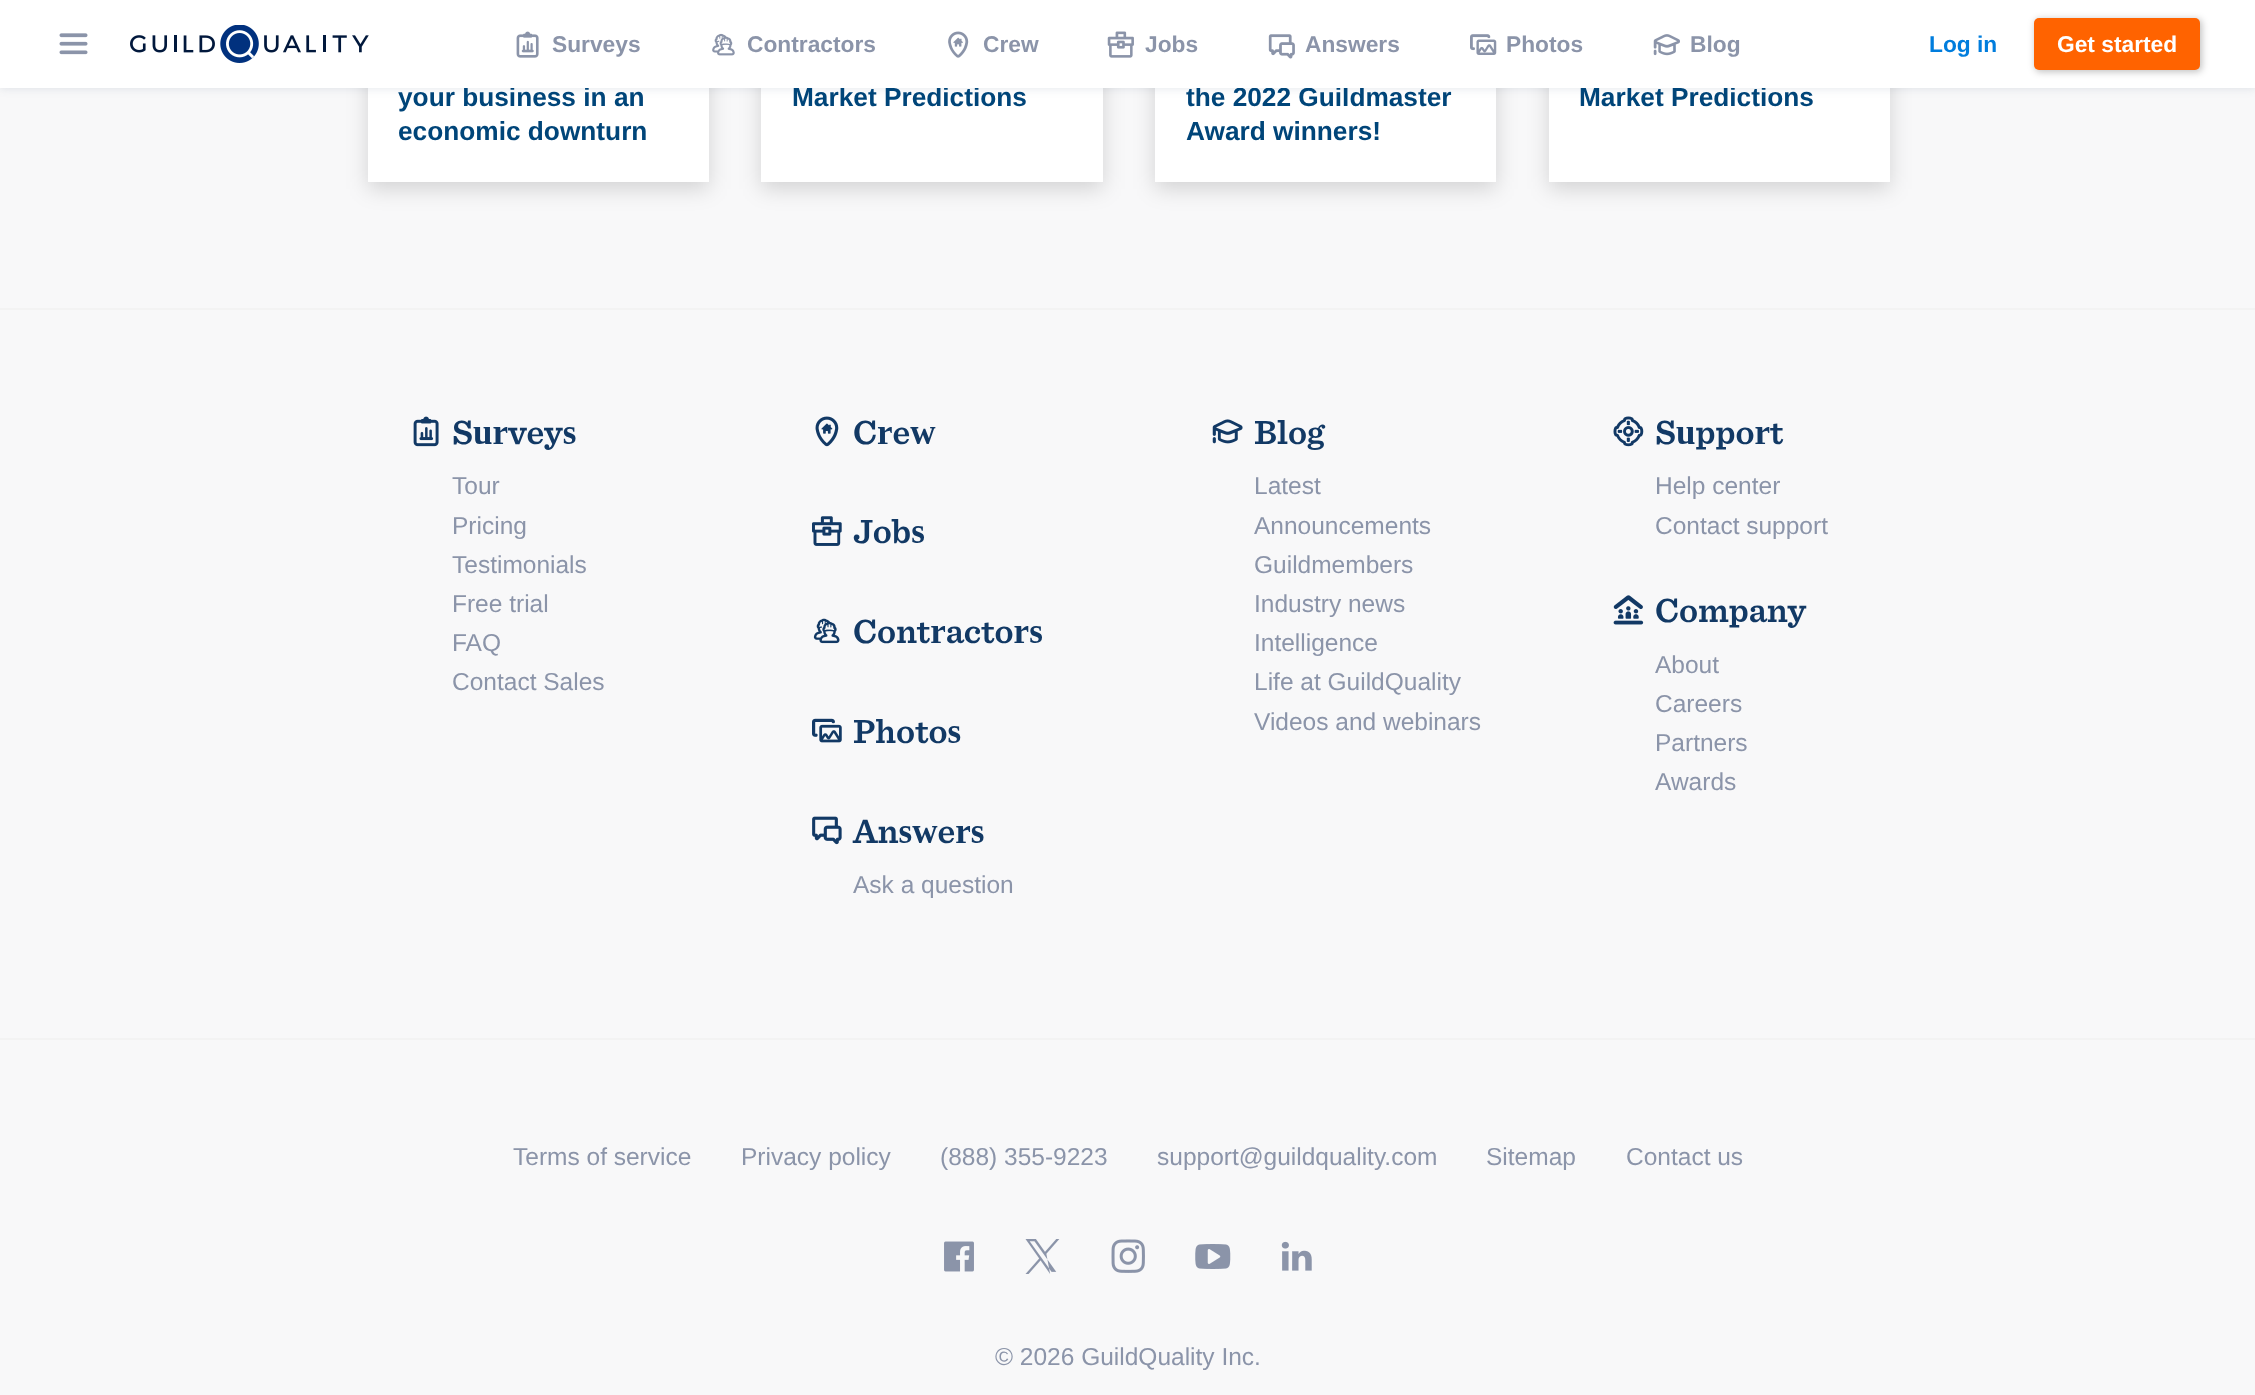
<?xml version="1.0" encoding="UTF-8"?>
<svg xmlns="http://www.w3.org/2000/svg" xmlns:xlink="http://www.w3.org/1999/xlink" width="2255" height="1395">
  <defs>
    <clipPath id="clip1"><path d="M 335 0 h 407 v 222 h -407 z m 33 -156 h 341 v 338 h -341 z" clip-rule="evenodd" /></clipPath>
    <clipPath id="clip2"><path d="M 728 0 h 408 v 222 h -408 z m 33 -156 h 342 v 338 h -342 z" clip-rule="evenodd" /></clipPath>
    <clipPath id="clip3"><path d="M 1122 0 h 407 v 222 h -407 z m 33 -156 h 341 v 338 h -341 z" clip-rule="evenodd" /></clipPath>
    <clipPath id="clip4"><path d="M 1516 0 h 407 v 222 h -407 z m 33 -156 h 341 v 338 h -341 z" clip-rule="evenodd" /></clipPath>
  </defs>
  <rect width="100%" height="100%" fill="#f8f8f9" />
  <rect x="368" y="88" width="341" height="94" fill="#ffffff" />
  <rect x="761" y="88" width="342" height="94" fill="#ffffff" />
  <rect x="1155" y="88" width="341" height="94" fill="#ffffff" />
  <rect x="1549" y="88" width="341" height="94" fill="#ffffff" />
  <rect y="2" width="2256" height="87" fill="#334a6d" fill-opacity="0.12" filter="blur(4.5px)" />
  <g clip-path="url(#clip1)">
    <rect x="368" y="-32" width="341" height="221" fill="#000000" fill-opacity="0.15" filter="blur(10.5px)" />
  </g>
  <g clip-path="url(#clip2)">
    <rect x="761" y="-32" width="342" height="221" fill="#000000" fill-opacity="0.15" filter="blur(10.5px)" />
  </g>
  <g clip-path="url(#clip3)">
    <rect x="1155" y="-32" width="341" height="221" fill="#000000" fill-opacity="0.15" filter="blur(10.5px)" />
  </g>
  <g clip-path="url(#clip4)">
    <rect x="1549" y="-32" width="341" height="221" fill="#000000" fill-opacity="0.15" filter="blur(10.5px)" />
  </g>
  <rect y="308" width="2255" height="2" fill="#f3f3f3" />
  <image x="413" y="416" width="26" height="31" xlink:href="image10.png" />
  <image x="815" y="416" width="24" height="31" xlink:href="image11.png" />
  <image x="812" y="516" width="30" height="30" xlink:href="image12.png" />
  <image x="813" y="618" width="27" height="26" xlink:href="image13.png" />
  <image x="812" y="718" width="30" height="25" xlink:href="image14.png" />
  <image x="812" y="816" width="30" height="29" xlink:href="image15.png" />
  <image x="1212" y="419" width="31" height="25" xlink:href="image16.png" />
  <image x="1613" y="416" width="31" height="31" xlink:href="image17.png" />
  <image x="1613" y="595" width="31" height="30" xlink:href="image18.png" />
  <rect y="1038" width="2255" height="2" fill="#f3f3f3" />
  <image x="944" y="1241" width="30" height="31" xlink:href="image19.png" />
  <image x="1025" y="1239" width="35" height="35" xlink:href="image20.png" />
  <image x="1111" y="1239" width="34" height="34" xlink:href="image21.png" />
  <image x="1195" y="1244" width="36" height="25" xlink:href="image22.png" />
  <image x="1281" y="1241" width="31" height="30" xlink:href="image23.png" />
  <text x="398" y="106" style="font-family: Liberation Sans; font-size: 26.25px; font-weight: bold; fill: #004579">your business in an</text>
  <text x="398" y="140" style="font-family: Liberation Sans; font-size: 26.25px; font-weight: bold; fill: #004579">economic downturn</text>
  <text x="792" y="106" style="font-family: Liberation Sans; font-size: 26.25px; font-weight: bold; fill: #004579">Market Predictions</text>
  <text x="1186" y="106" style="font-family: Liberation Sans; font-size: 26.25px; font-weight: bold; fill: #004579">the 2022 Guildmaster</text>
  <text x="1186" y="140" style="font-family: Liberation Sans; font-size: 26.25px; font-weight: bold; fill: #004579">Award winners!</text>
  <text x="1579" y="106" style="font-family: Liberation Sans; font-size: 26.25px; font-weight: bold; fill: #004579">Market Predictions</text>
  <rect width="2255" height="88" fill="#ffffff" />
  <rect x="2035" y="19" width="167" height="53" rx="5" fill="#000000" fill-opacity="0.24" filter="blur(3.5px)" />
  <rect x="2034" y="18" width="166" height="52" rx="5" fill="#ff6300" />
  <text x="2057" y="52" style="font-family: Liberation Sans; font-size: 22.75px; font-weight: bold; fill: #ffffff">Get started</text>
  <text x="1929" y="52" style="font-family: Liberation Sans; font-size: 22.75px; font-weight: bold; fill: #007ddd">Log in</text>
  <image x="1653" y="34" width="27" height="22" xlink:href="image9.png" />
  <text x="1690" y="52" style="font-family: Liberation Sans; font-size: 22.75px; font-weight: bold; fill: #8b94a9">Blog</text>
  <image x="1470" y="34" width="27" height="21" xlink:href="image8.png" />
  <text x="1506" y="52" style="font-family: Liberation Sans; font-size: 22.75px; font-weight: bold; fill: #8b94a9">Photos</text>
  <image x="1268" y="34" width="27" height="25" xlink:href="image7.png" />
  <text x="1305" y="52" style="font-family: Liberation Sans; font-size: 22.75px; font-weight: bold; fill: #8b94a9">Answers</text>
  <image x="1107" y="31" width="27" height="27" xlink:href="image6.png" />
  <text x="1145" y="52" style="font-family: Liberation Sans; font-size: 22.75px; font-weight: bold; fill: #8b94a9">Jobs</text>
  <image x="948" y="31" width="21" height="27" xlink:href="image5.png" />
  <text x="983" y="52" style="font-family: Liberation Sans; font-size: 22.75px; font-weight: bold; fill: #8b94a9">Crew</text>
  <image x="712" y="33" width="23" height="23" xlink:href="image4.png" />
  <text x="747" y="52" style="font-family: Liberation Sans; font-size: 22.75px; font-weight: bold; fill: #8b94a9">Contractors</text>
  <image x="516" y="31" width="23" height="27" xlink:href="image3.png" />
  <text x="552" y="52" style="font-family: Liberation Sans; font-size: 22.75px; font-weight: bold; fill: #8b94a9">Surveys</text>
  <image x="130" y="25" width="239" height="38" xlink:href="image2.png" />
  <image x="59" y="33" width="29" height="22" xlink:href="image1.png" />
  <text x="452" y="444" style="font-family: 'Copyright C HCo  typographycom'; font-size: 35px; font-weight: 600; fill: #123965">Surveys</text>
  <text x="452" y="494" style="font-family: Liberation Sans; font-size: 24.5px; fill: #8b94a9">Tour</text>
  <text x="452" y="534" style="font-family: Liberation Sans; font-size: 24.5px; fill: #8b94a9">Pricing</text>
  <text x="452" y="573" style="font-family: Liberation Sans; font-size: 24.5px; fill: #8b94a9">Testimonials</text>
  <text x="452" y="612" style="font-family: Liberation Sans; font-size: 24.5px; fill: #8b94a9">Free trial</text>
  <text x="452" y="651" style="font-family: Liberation Sans; font-size: 24.5px; fill: #8b94a9">FAQ</text>
  <text x="452" y="690" style="font-family: Liberation Sans; font-size: 24.5px; fill: #8b94a9">Contact Sales</text>
  <text x="853" y="444" style="font-family: 'Copyright C HCo  typographycom'; font-size: 35px; font-weight: 600; fill: #123965">Crew</text>
  <text x="853" y="543" style="font-family: 'Copyright C HCo  typographycom'; font-size: 35px; font-weight: 600; fill: #123965">Jobs</text>
  <text x="853" y="643" style="font-family: 'Copyright C HCo  typographycom'; font-size: 35px; font-weight: 600; fill: #123965">Contractors</text>
  <text x="853" y="743" style="font-family: 'Copyright C HCo  typographycom'; font-size: 35px; font-weight: 600; fill: #123965">Photos</text>
  <text x="853" y="843" style="font-family: 'Copyright C HCo  typographycom'; font-size: 35px; font-weight: 600; fill: #123965">Answers</text>
  <text x="853" y="893" style="font-family: Liberation Sans; font-size: 24.5px; fill: #8b94a9">Ask a question</text>
  <text x="1254" y="444" style="font-family: 'Copyright C HCo  typographycom'; font-size: 35px; font-weight: 600; fill: #123965">Blog</text>
  <text x="1254" y="494" style="font-family: Liberation Sans; font-size: 24.5px; fill: #8b94a9">Latest</text>
  <text x="1254" y="534" style="font-family: Liberation Sans; font-size: 24.5px; fill: #8b94a9">Announcements</text>
  <text x="1254" y="573" style="font-family: Liberation Sans; font-size: 24.5px; fill: #8b94a9">Guildmembers</text>
  <text x="1254" y="612" style="font-family: Liberation Sans; font-size: 24.5px; fill: #8b94a9">Industry news</text>
  <text x="1254" y="651" style="font-family: Liberation Sans; font-size: 24.5px; fill: #8b94a9">Intelligence</text>
  <text x="1254" y="690" style="font-family: Liberation Sans; font-size: 24.5px; fill: #8b94a9">Life at GuildQuality</text>
  <text x="1254" y="730" style="font-family: Liberation Sans; font-size: 24.5px; fill: #8b94a9">Videos and webinars</text>
  <text x="1655" y="444" style="font-family: 'Copyright C HCo  typographycom'; font-size: 35px; font-weight: 600; fill: #123965">Support</text>
  <text x="1655" y="494" style="font-family: Liberation Sans; font-size: 24.5px; fill: #8b94a9">Help center</text>
  <text x="1655" y="534" style="font-family: Liberation Sans; font-size: 24.5px; fill: #8b94a9">Contact support</text>
  <text x="1655" y="622" style="font-family: 'Copyright C HCo  typographycom'; font-size: 35px; font-weight: 600; fill: #123965">Company</text>
  <text x="1655" y="673" style="font-family: Liberation Sans; font-size: 24.5px; fill: #8b94a9">About</text>
  <text x="1655" y="712" style="font-family: Liberation Sans; font-size: 24.5px; fill: #8b94a9">Careers</text>
  <text x="1655" y="751" style="font-family: Liberation Sans; font-size: 24.5px; fill: #8b94a9">Partners</text>
  <text x="1655" y="790" style="font-family: Liberation Sans; font-size: 24.5px; fill: #8b94a9">Awards</text>
  <text x="513" y="1165" style="font-family: Liberation Sans; font-size: 24.5px; fill: #8b94a9">Terms of service</text>
  <text x="741" y="1165" style="font-family: Liberation Sans; font-size: 24.5px; fill: #8b94a9">Privacy policy</text>
  <text x="940" y="1165" style="font-family: Liberation Sans; font-size: 24.5px; fill: #8b94a9">(888) 355-9223</text>
  <text x="1157" y="1165" style="font-family: Liberation Sans; font-size: 24.5px; fill: #8b94a9">support@guildquality.com</text>
  <text x="1486" y="1165" style="font-family: Liberation Sans; font-size: 24.5px; fill: #8b94a9">Sitemap</text>
  <text x="1626" y="1165" style="font-family: Liberation Sans; font-size: 24.5px; fill: #8b94a9">Contact us</text>
  <text x="995" y="1365" style="font-family: Liberation Sans; font-size: 24.5px; fill: #8b94a9">© 2026 GuildQuality Inc.</text>
</svg>
